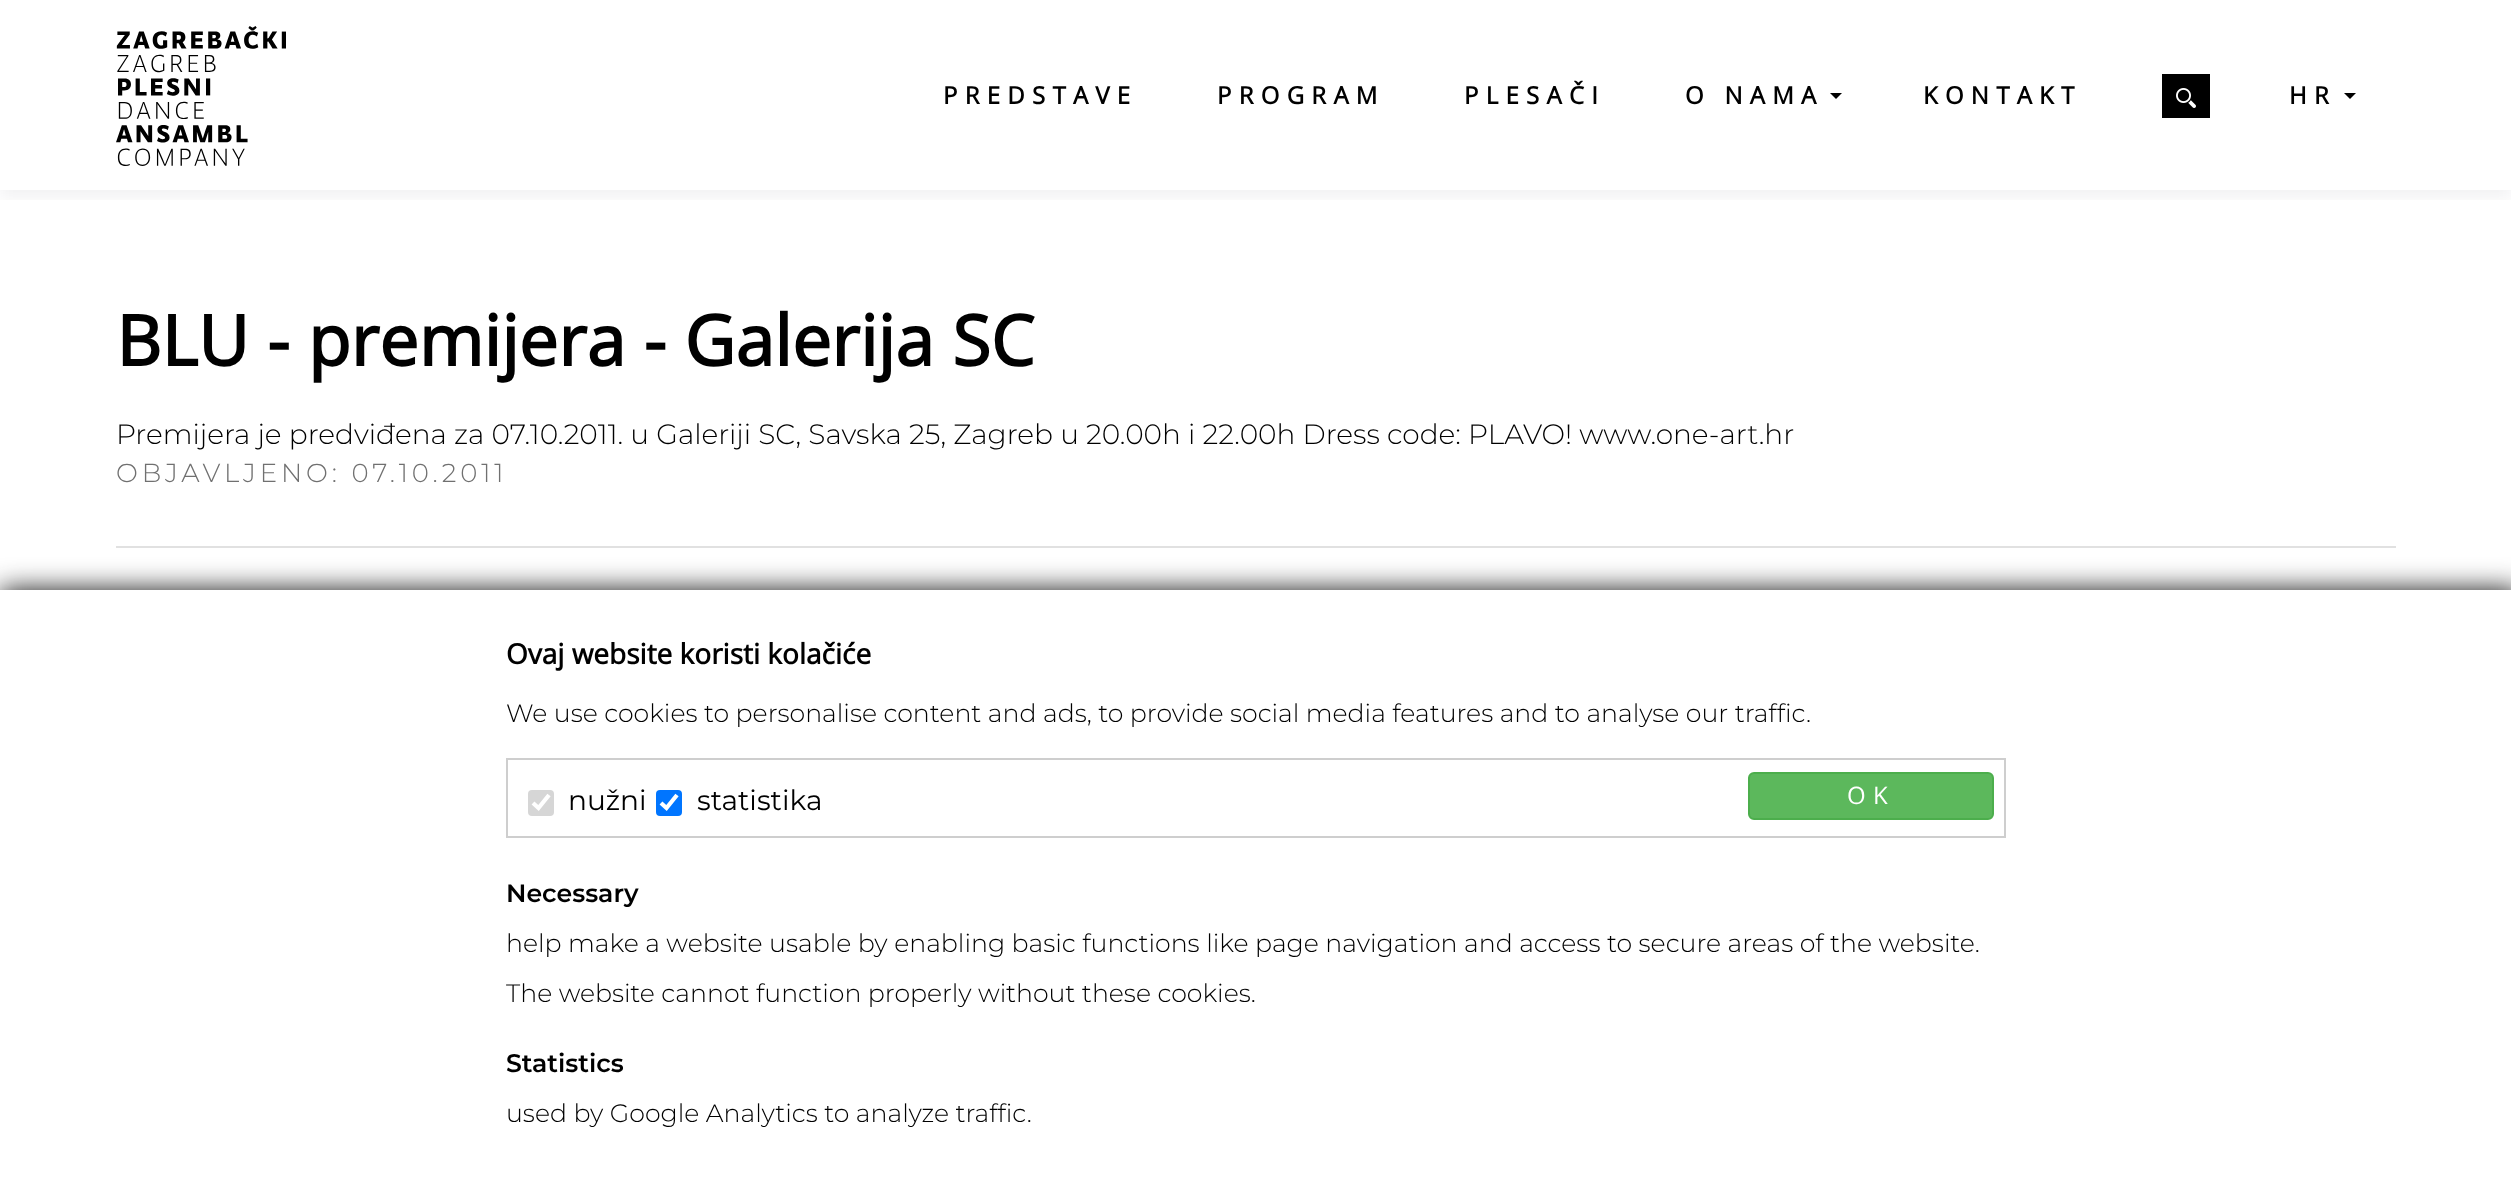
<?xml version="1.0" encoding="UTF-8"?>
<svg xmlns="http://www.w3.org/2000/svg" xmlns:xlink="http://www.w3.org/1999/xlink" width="2511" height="1187">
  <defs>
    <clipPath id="clip1"><rect x="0" y="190" width="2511" height="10" /></clipPath>
  </defs>
  <rect width="100%" height="100%" fill="#ffffff" />
  <g clip-path="url(#clip1)">
    <rect y="8" width="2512" height="190" fill="#040914" fill-opacity="0.05" filter="blur(7.5px)" />
  </g>
  <image x="116" y="26" width="170" height="140" xlink:href="image1.png" />
  <path d="M 1830 93 h 12 l -6 6 z" fill="#000000" />
  <rect x="2162" y="74" width="48" height="44" fill="#000000" />
  <image x="2176" y="88" width="20" height="20" xlink:href="image2.png" />
  <path d="M 2344 93 h 12 l -6 6 z" fill="#000000" />
  <rect x="116" y="546" width="2280" height="2" fill="#e1e1e1" />
  <rect y="590" width="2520" height="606" fill="#121212" filter="blur(14px)" />
  <rect y="590" width="2511" height="597" fill="#ffffff" />
  <rect x="507" y="759" width="1498" height="78" fill="none" stroke="#cecece" stroke-width="2" />
  <rect x="528" y="790" width="26" height="26" rx="4" fill="#d6d6d6" />
  <path d="M 533 803 l 5.5 5 l 10.5 -13" fill="none" stroke="#ffffff" stroke-width="4.2" />
  <rect x="656" y="790" width="26" height="26" rx="4" fill="#0075ff" />
  <path d="M 661 803 l 5.5 5 l 10.5 -13" fill="none" stroke="#ffffff" stroke-width="4.2" />
  <rect x="1749" y="773" width="244" height="46" rx="5" fill="#5cb85c" stroke="#4cae4c" stroke-width="2" />
  <text x="943" y="104" style="font-family: Open Sans; font-size: 24px; font-weight: bold; letter-spacing: 7.25px; fill: #000000">PREDSTAVE</text>
  <text x="1217" y="104" style="font-family: Open Sans; font-size: 24px; font-weight: bold; letter-spacing: 7.25px; fill: #000000">PROGRAM</text>
  <text x="1464" y="104" style="font-family: Open Sans; font-size: 24px; font-weight: bold; letter-spacing: 7.25px; fill: #000000">PLESAČI</text>
  <text x="1685" y="104" style="font-family: Open Sans; font-size: 24px; font-weight: bold; letter-spacing: 7.25px; fill: #000000">O NAMA</text>
  <text x="1923" y="104" style="font-family: Open Sans; font-size: 24px; font-weight: bold; letter-spacing: 7.25px; fill: #000000">KONTAKT</text>
  <text x="2289" y="104" style="font-family: Open Sans; font-size: 24px; font-weight: bold; letter-spacing: 7.25px; fill: #000000">HR</text>
  <text x="116" y="366" style="font-family: Open Sans; font-size: 70px; font-weight: bold; fill: #000000">BLU - premijera - Galerija SC</text>
  <text x="116" y="444" style="font-family: Montserrat; font-size: 28px; font-weight: 300; fill: #000000">Premijera je predviđena za 07.10.2011. u Galeriji SC, Savska 25, Zagreb u 20.00h i 22.00h Dress code: PLAVO! www.one-art.hr</text>
  <text x="116" y="482" style="font-family: Montserrat; font-size: 26px; font-weight: 300; letter-spacing: 3.9px; fill: #707070">OBJAVLJENO: 07.10.2011</text>
  <text x="506" y="664" style="font-family: Open Sans; font-size: 28px; font-weight: bold; fill: #000000">Ovaj website koristi kolačiće</text>
  <text x="506" y="722" style="font-family: Montserrat; font-size: 25.2px; font-weight: 300; fill: #000000">We use cookies to personalise content and ads, to provide social media features and to analyse our traffic.</text>
  <text x="568" y="810" style="font-family: Montserrat; font-size: 28px; fill: #000000">nužni</text>
  <text x="697" y="810" style="font-family: Montserrat; font-size: 28px; fill: #000000">statistika</text>
  <text x="1847" y="804" style="font-family: Open Sans; font-size: 24px; letter-spacing: 7.25px; fill: #ffffff">OK</text>
  <text x="506" y="902" style="font-family: Montserrat; font-size: 25.2px; font-weight: 600; fill: #000000">Necessary</text>
  <text x="506" y="952" style="font-family: Montserrat; font-size: 25.2px; font-weight: 300; fill: #000000">help make a website usable by enabling basic functions like page navigation and access to secure areas of the website.</text>
  <text x="506" y="1002" style="font-family: Montserrat; font-size: 25.2px; font-weight: 300; fill: #000000">The website cannot function properly without these cookies.</text>
  <text x="506" y="1072" style="font-family: Montserrat; font-size: 25.2px; font-weight: 600; fill: #000000">Statistics</text>
  <text x="506" y="1122" style="font-family: Montserrat; font-size: 25.2px; font-weight: 300; fill: #000000">used by Google Analytics to analyze traffic.</text>
</svg>
